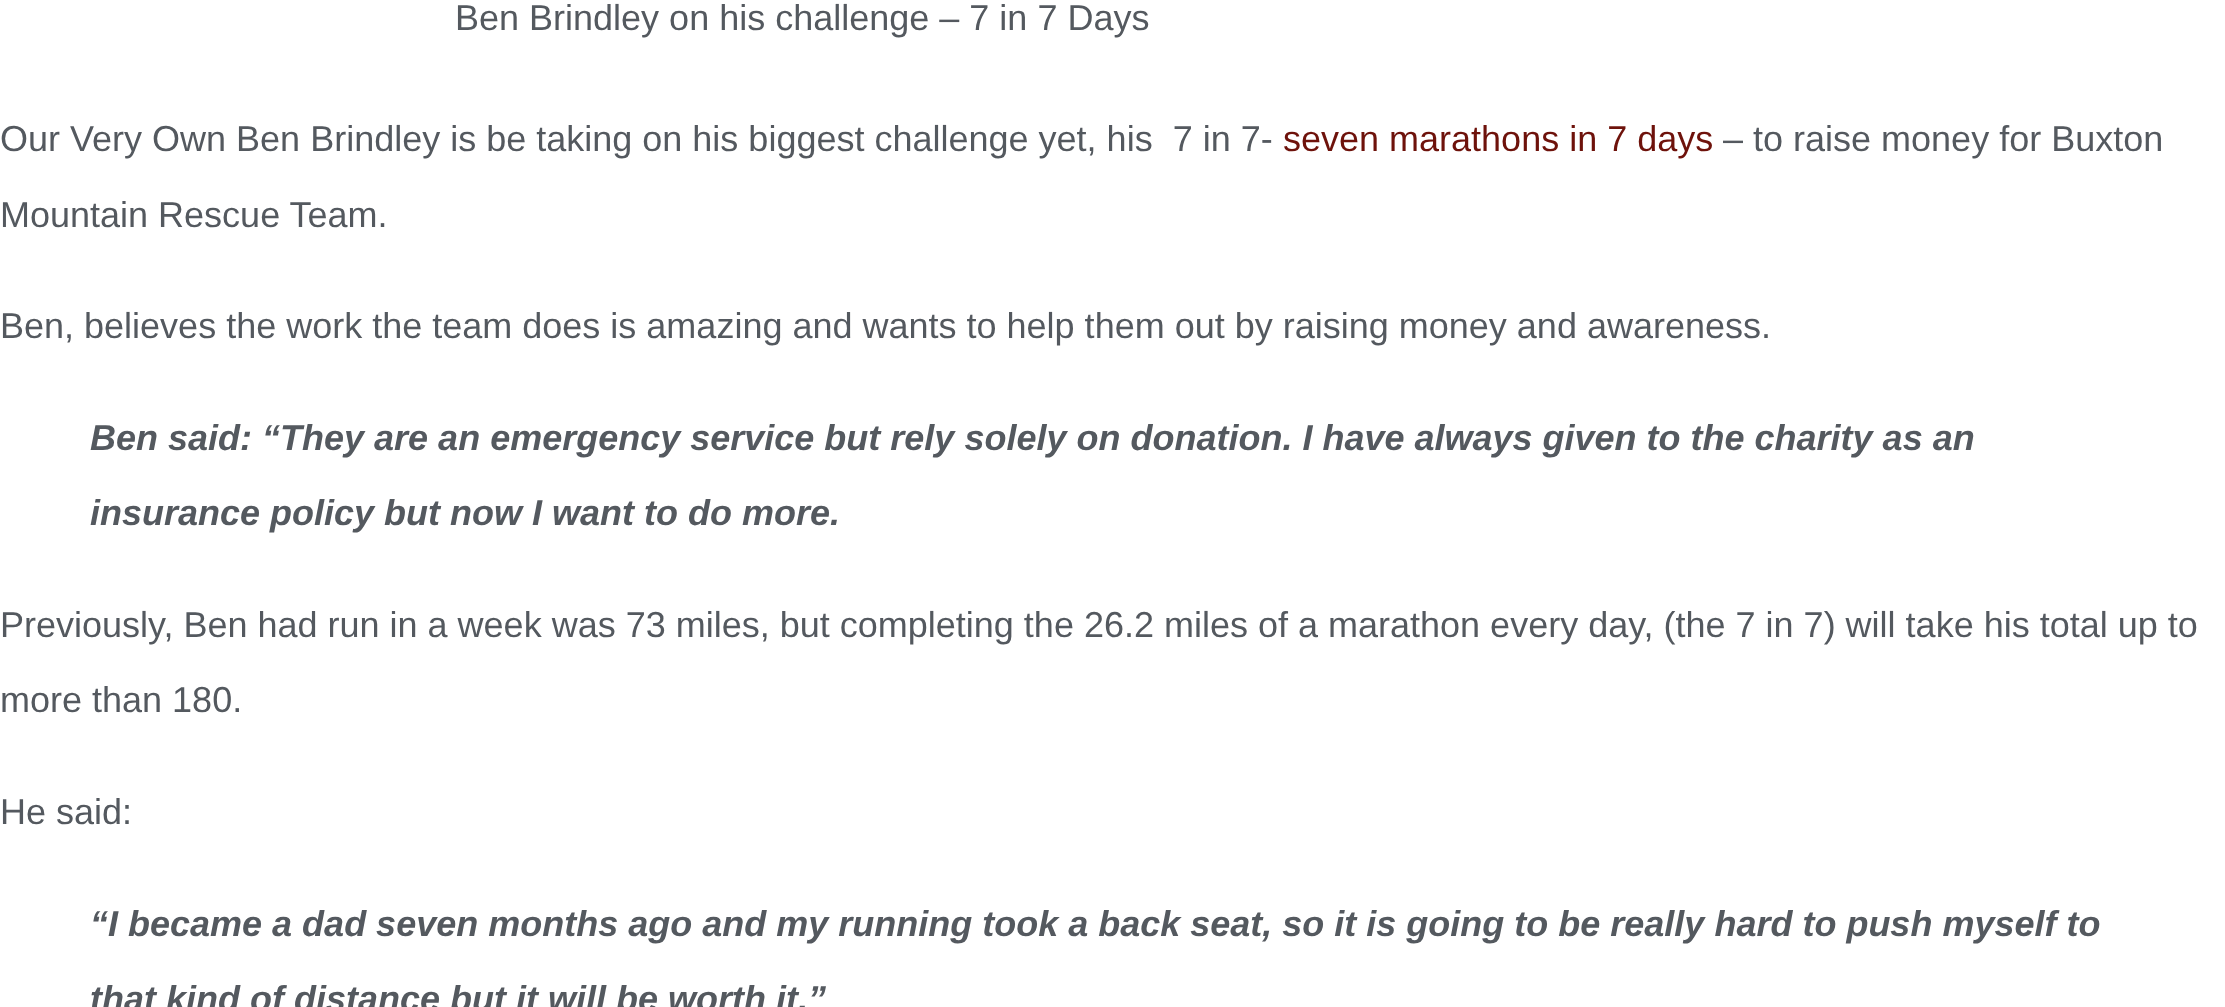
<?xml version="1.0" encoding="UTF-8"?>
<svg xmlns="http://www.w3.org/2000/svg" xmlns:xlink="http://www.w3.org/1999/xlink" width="2225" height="1007">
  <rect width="100%" height="100%" fill="#ffffff" />
  <text x="455" y="30" style="font-family: Liberation Sans; font-size: 36px; fill: #54595f">Ben Brindley on his challenge – 7 in 7 Days</text>
  <text x="0" y="151" style="font-family: Liberation Sans; font-size: 36px; fill: #54595f" xml:space="preserve">Our Very Own Ben Brindley is be taking on his biggest challenge yet, his  7 in 7-</text>
  <text x="1283" y="151" style="font-family: Liberation Sans; font-size: 36px; fill: #6e120b">seven marathons in 7 days</text>
  <text x="1723" y="151" style="font-family: Liberation Sans; font-size: 36px; fill: #54595f">– to raise money for Buxton</text>
  <text x="0" y="227" style="font-family: Liberation Sans; font-size: 36px; fill: #54595f">Mountain Rescue Team.</text>
  <text x="0" y="338" style="font-family: Liberation Sans; font-size: 36px; fill: #54595f">Ben, believes the work the team does is amazing and wants to help them out by raising money and awareness.</text>
  <text x="90" y="450" style="font-family: Liberation Sans; font-size: 36px; font-weight: bold; font-style: italic; fill: #54595f">Ben said: “They are an emergency service but rely solely on donation. I have always given to the charity as an</text>
  <text x="90" y="525" style="font-family: Liberation Sans; font-size: 36px; font-weight: bold; font-style: italic; fill: #54595f">insurance policy but now I want to do more.</text>
  <text x="0" y="637" style="font-family: Liberation Sans; font-size: 36px; fill: #54595f">Previously, Ben had run in a week was 73 miles, but completing the 26.2 miles of a marathon every day, (the 7 in 7) will take his total up to</text>
  <text x="0" y="712" style="font-family: Liberation Sans; font-size: 36px; fill: #54595f">more than 180.</text>
  <text x="0" y="824" style="font-family: Liberation Sans; font-size: 36px; fill: #54595f">He said:</text>
  <text x="90" y="936" style="font-family: Liberation Sans; font-size: 36px; font-weight: bold; font-style: italic; fill: #54595f">“I became a dad seven months ago and my running took a back seat, so it is going to be really hard to push myself to</text>
  <text x="90" y="1011" style="font-family: Liberation Sans; font-size: 36px; font-weight: bold; font-style: italic; fill: #54595f">that kind of distance but it will be worth it.”</text>
</svg>
